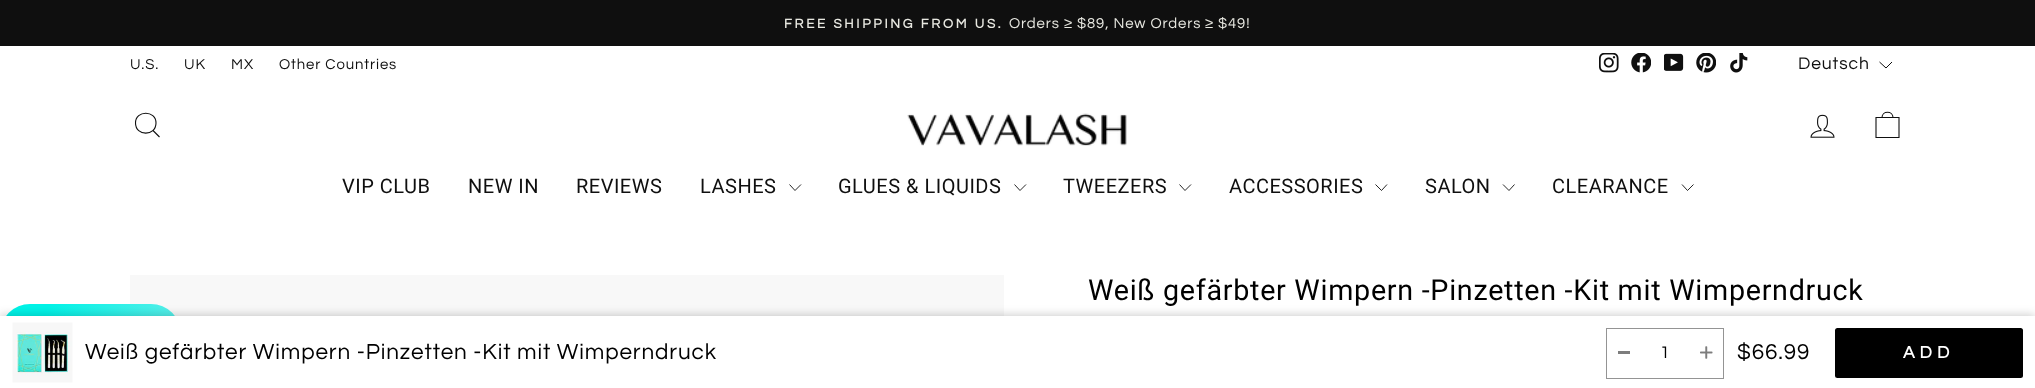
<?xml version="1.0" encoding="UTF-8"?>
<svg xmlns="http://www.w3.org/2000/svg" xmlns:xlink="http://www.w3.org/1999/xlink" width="2035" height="388">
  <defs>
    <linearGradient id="g1" gradientUnits="userSpaceOnUse" x1="0.7" y1="302" x2="253" y2="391"><stop offset="0.17" stop-color="#01f3e7" /><stop offset="1" stop-color="#99eceb" /></linearGradient>
  </defs>
  <rect width="100%" height="100%" fill="#ffffff" />
  <rect width="2035" height="46" fill="#0f0f0f" />
  <image x="1599" y="53" width="20" height="20" xlink:href="image1.png" />
  <image x="1631" y="53" width="20" height="20" xlink:href="image2.png" />
  <image x="1664" y="53" width="20" height="18" xlink:href="image3.png" />
  <image x="1696" y="53" width="20" height="20" xlink:href="image4.png" />
  <image x="1730" y="53" width="18" height="20" xlink:href="image5.png" />
  <path d="M 1879.5 62 l 6.5 6 l 6 -6" fill="none" stroke="#0f0f0f" />
  <path d="M 156 123 c 0 13.5 -20.5 13.5 -20.5 0 c 0 -13 20.5 -13 20.5 0 z m 3.5 14 l -6.5 -6.5" fill="none" stroke="#0f0f0f" stroke-width="1.1" />
  <image x="907" y="113" width="220" height="33" xlink:href="image6.png" />
  <image x="1810" y="114" width="25" height="24" xlink:href="image7.png" />
  <path d="M 1876 117.5 h 23 v 20 h -23 z m 6 0 c 0 -7 11 -7 11 0" fill="none" stroke="#0f0f0f" stroke-width="1.1" />
  <path d="M 789.5 184.5 l 5.5 6 l 6 -6" fill="none" stroke="#0f0f0f" stroke-width="0.9" />
  <path d="M 1014.5 184.5 l 5.5 6 l 6 -6" fill="none" stroke="#0f0f0f" stroke-width="0.9" />
  <path d="M 1179.5 184.5 l 5.5 6 l 6 -6" fill="none" stroke="#0f0f0f" stroke-width="0.9" />
  <path d="M 1375.5 184.5 l 6 6 l 5.5 -6" fill="none" stroke="#0f0f0f" stroke-width="0.9" />
  <path d="M 1503 184.5 l 6 6 l 5.5 -6" fill="none" stroke="#0f0f0f" stroke-width="0.9" />
  <path d="M 1682 184.5 l 5.5 6 l 6 -6" fill="none" stroke="#0f0f0f" stroke-width="0.9" />
  <rect x="130" y="275" width="874" height="41" fill="#f8f8f8" />
  <rect y="304" width="181" height="60" rx="30" fill="url(#g1)" />
  <rect y="315" width="2035" height="73" fill="#000000" fill-opacity="0.2" filter="blur(5px)" />
  <rect y="316" width="2035" height="72" fill="#ffffff" />
  <image x="12" y="322" width="61" height="61" xlink:href="image8.png" />
  <rect x="1606" y="328" width="118" height="1" fill="#949494" />
  <rect x="1606" y="378" width="84" height="1" fill="#949494" />
  <rect x="1606" y="328" width="1" height="51" fill="#949494" />
  <rect x="1618" y="351" width="12" height="3" fill="#7d7d7d" />
  <rect x="1723" y="328" width="1" height="51" fill="#949494" />
  <rect x="1690" y="378" width="34" height="1" fill="#949494" />
  <image x="1700" y="346" width="13" height="13" xlink:href="image9.png" />
  <rect x="1835" y="328" width="188" height="50" rx="2.5" fill="#000000" />
  <text x="784" y="28" style="font-family: Questrial; font-size: 13.4px; font-weight: bold; letter-spacing: 2.7px; fill: #e8e8e1">FREE SHIPPING FROM US.</text>
  <text x="1009" y="28" style="font-family: Questrial; font-size: 14.9px; letter-spacing: 0.88px; fill: #e8e8e1">Orders</text>
  <text x="1064" y="28" style="font-family: Liberation Sans; font-size: 14.9px; letter-spacing: 0.88px; fill: #e8e8e1">≥</text>
  <text x="1077" y="28" style="font-family: Questrial; font-size: 14.9px; letter-spacing: 0.88px; fill: #e8e8e1">$89, New Orders</text>
  <text x="1205" y="28" style="font-family: Liberation Sans; font-size: 14.9px; letter-spacing: 0.88px; fill: #e8e8e1">≥</text>
  <text x="1218" y="28" style="font-family: Questrial; font-size: 14.9px; letter-spacing: 0.88px; fill: #e8e8e1">$49!</text>
  <text x="130" y="69" style="font-family: Questrial; font-size: 14.9px; letter-spacing: 0.88px; fill: #0f0f0f">U.S.</text>
  <text x="184" y="69" style="font-family: Questrial; font-size: 14.9px; letter-spacing: 0.88px; fill: #0f0f0f">UK</text>
  <text x="231" y="69" style="font-family: Questrial; font-size: 14.9px; letter-spacing: 0.88px; fill: #0f0f0f">MX</text>
  <text x="279" y="69" style="font-family: Questrial; font-size: 14.9px; letter-spacing: 0.88px; fill: #0f0f0f">Other Countries</text>
  <text x="1798" y="69" style="font-family: Questrial; font-size: 17.5px; letter-spacing: 0.88px; fill: #0f0f0f">Deutsch</text>
  <text x="342" y="193" style="font-family: Roboto; font-size: 20px; letter-spacing: 0.5px; fill: #0f0f0f">VIP CLUB</text>
  <text x="468" y="193" style="font-family: Roboto; font-size: 20px; letter-spacing: 0.5px; fill: #0f0f0f">NEW IN</text>
  <text x="576" y="193" style="font-family: Roboto; font-size: 20px; letter-spacing: 0.5px; fill: #0f0f0f">REVIEWS</text>
  <text x="700" y="193" style="font-family: Roboto; font-size: 20px; letter-spacing: 0.5px; fill: #0f0f0f">LASHES</text>
  <text x="838" y="193" style="font-family: Roboto; font-size: 20px; letter-spacing: 0.5px; fill: #0f0f0f">GLUES &amp; LIQUIDS</text>
  <text x="1063" y="193" style="font-family: Roboto; font-size: 20px; letter-spacing: 0.5px; fill: #0f0f0f">TWEEZERS</text>
  <text x="1229" y="193" style="font-family: Roboto; font-size: 20px; letter-spacing: 0.5px; fill: #0f0f0f">ACCESSORIES</text>
  <text x="1425" y="193" style="font-family: Roboto; font-size: 20px; letter-spacing: 0.5px; fill: #0f0f0f">SALON</text>
  <text x="1552" y="193" style="font-family: Roboto; font-size: 20px; letter-spacing: 0.5px; fill: #0f0f0f">CLEARANCE</text>
  <text x="1088" y="300" style="font-family: Roboto; font-size: 28.7px; letter-spacing: 0.72px; fill: #000000">Weiß gefärbter Wimpern -Pinzetten -Kit mit Wimperndruck</text>
  <text x="85" y="359" style="font-family: Questrial; font-size: 22.5px; letter-spacing: 0.88px; fill: #000000">Weiß gefärbter Wimpern -Pinzetten -Kit mit Wimperndruck</text>
  <text x="1660" y="358" style="font-family: Questrial; font-size: 17.5px; letter-spacing: 0.88px; fill: #000000">1</text>
  <text x="1737" y="359" style="font-family: Questrial; font-size: 22.5px; letter-spacing: 0.88px; fill: #000000">$66.99</text>
  <text x="1903" y="358" style="font-family: Questrial; font-size: 17.5px; font-weight: bold; letter-spacing: 5px; fill: #ffffff">ADD</text>
</svg>
